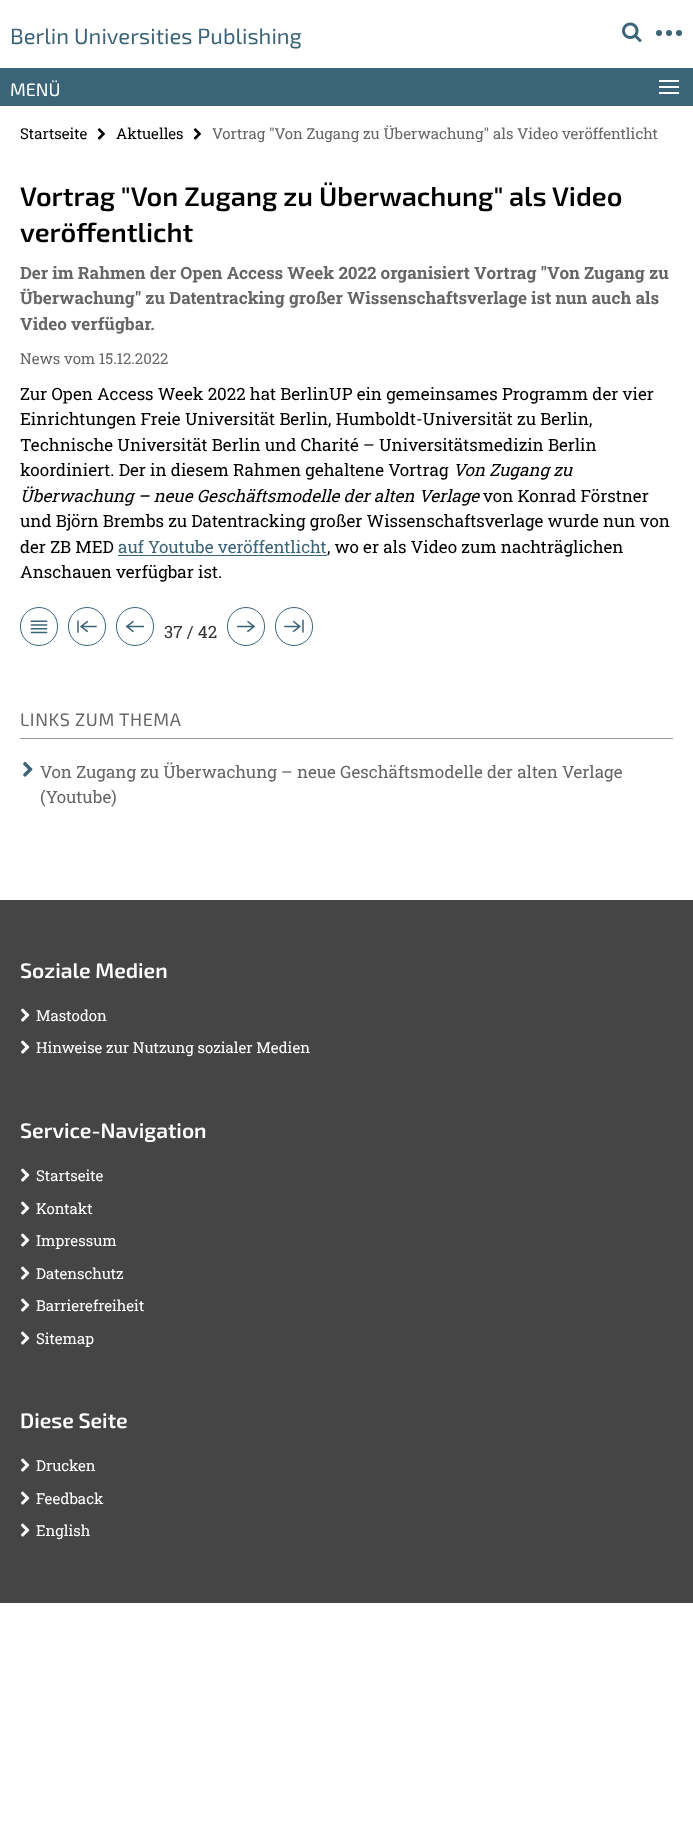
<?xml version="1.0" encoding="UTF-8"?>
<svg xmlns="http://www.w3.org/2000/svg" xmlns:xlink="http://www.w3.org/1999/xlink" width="693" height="1829">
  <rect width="100%" height="100%" fill="#ffffff" />
  <image x="622" y="22" width="20" height="20" xlink:href="image1.png" />
  <circle cx="659" cy="33" r="3" fill="#3c6478" />
  <circle cx="669" cy="33" r="3" fill="#3c6478" />
  <circle cx="679" cy="33" r="3" fill="#3c6478" />
  <rect y="68" width="693" height="38" fill="#3c6478" />
  <rect x="659" y="80" width="20" height="2" fill="#ffffff" />
  <rect x="659" y="86" width="20" height="2" fill="#ffffff" />
  <rect x="659" y="92" width="20" height="2" fill="#ffffff" />
  <image x="97" y="128" width="8" height="12" xlink:href="image2.png" />
  <image x="193" y="128" width="8" height="12" xlink:href="image2.png" />
  <rect x="118" y="555" width="209" height="1" fill="#3c6478" />
  <rect x="20.5" y="607.5" width="37" height="38" rx="18.5" fill="none" stroke="#3c6478" />
  <image x="30" y="620" width="18" height="14" xlink:href="image3.png" />
  <rect x="68.5" y="607.5" width="37" height="38" rx="18.5" fill="none" stroke="#3c6478" />
  <image x="77" y="620" width="20" height="13" xlink:href="image4.png" />
  <rect x="116.5" y="607.5" width="37" height="38" rx="18.5" fill="none" stroke="#3c6478" />
  <image x="125" y="620" width="19" height="13" xlink:href="image5.png" />
  <rect x="227.5" y="607.5" width="37" height="38" rx="18.5" fill="none" stroke="#3c6478" />
  <image x="237" y="620" width="19" height="13" xlink:href="image6.png" />
  <rect x="275.5" y="607.5" width="37" height="38" rx="18.5" fill="none" stroke="#3c6478" />
  <image x="284" y="619" width="20" height="14" xlink:href="image7.png" />
  <rect x="20" y="738" width="653" height="1" fill="#999999" />
  <image x="23" y="762" width="10" height="15" xlink:href="image8.png" />
  <rect y="900" width="693" height="703" fill="#454545" />
  <image x="21" y="1008" width="9" height="14" xlink:href="image9.png" />
  <image x="21" y="1040" width="9" height="14" xlink:href="image9.png" />
  <image x="21" y="1168" width="9" height="14" xlink:href="image9.png" />
  <image x="21" y="1201" width="9" height="14" xlink:href="image9.png" />
  <image x="21" y="1233" width="9" height="14" xlink:href="image9.png" />
  <image x="21" y="1266" width="9" height="14" xlink:href="image9.png" />
  <image x="21" y="1298" width="9" height="14" xlink:href="image9.png" />
  <image x="21" y="1331" width="9" height="14" xlink:href="image9.png" />
  <image x="21" y="1458" width="9" height="14" xlink:href="image9.png" />
  <image x="21" y="1491" width="9" height="14" xlink:href="image9.png" />
  <image x="21" y="1523" width="9" height="14" xlink:href="image9.png" />
  <text x="10" y="44" style="font-family: 'Exo 2'; font-size: 22px; fill: #3c6478">Berlin Universities Publishing</text>
  <text x="10" y="96" style="font-family: 'Exo 2'; font-size: 18px; fill: #ffffff">MENÜ</text>
  <text x="20" y="139" style="font-family: Roboto Slab; font-size: 15px; fill: #000000">Startseite</text>
  <text x="116" y="139" style="font-family: Roboto Slab; font-size: 15px; fill: #000000">Aktuelles</text>
  <text x="212" y="139" style="font-family: Roboto Slab; font-size: 15px; fill: #666666">Vortrag "Von Zugang zu Überwachung" als Video veröffentlicht</text>
  <text x="20" y="206" style="font-family: 'Exo 2'; font-size: 27px; font-weight: 600; fill: #000000">Vortrag "Von Zugang zu Überwachung" als Video</text>
  <text x="20" y="242" style="font-family: 'Exo 2'; font-size: 27px; font-weight: 600; fill: #000000">veröffentlicht</text>
  <text x="20" y="279" style="font-family: Roboto Slab; font-size: 17px; font-weight: bold; fill: #666666">Der im Rahmen der Open Access Week 2022 organisiert Vortrag "Von Zugang zu</text>
  <text x="20" y="304" style="font-family: Roboto Slab; font-size: 17px; font-weight: bold; fill: #666666">Überwachung" zu Datentracking großer Wissenschaftsverlage ist nun auch als</text>
  <text x="20" y="330" style="font-family: Roboto Slab; font-size: 17px; font-weight: bold; fill: #666666">Video verfügbar.</text>
  <text x="20" y="364" style="font-family: Roboto Slab; font-size: 15px; fill: #666666">News vom 15.12.2022</text>
  <text x="20" y="400" style="font-family: Roboto Slab; font-size: 17px; fill: #000000">Zur Open Access Week 2022 hat BerlinUP ein gemeinsames Programm der vier</text>
  <text x="20" y="425" style="font-family: Roboto Slab; font-size: 17px; fill: #000000">Einrichtungen Freie Universität Berlin, Humboldt-Universität zu Berlin,</text>
  <text x="20" y="451" style="font-family: Roboto Slab; font-size: 17px; fill: #000000">Technische Universität Berlin und Charité – Universitätsmedizin Berlin</text>
  <text x="20" y="476" style="font-family: Roboto Slab; font-size: 17px; fill: #000000">koordiniert. Der in diesem Rahmen gehaltene Vortrag</text>
  <text x="453" y="476" style="font-family: Roboto Slab; font-size: 17px; font-style: italic; fill: #000000">Von Zugang zu</text>
  <text x="20" y="502" style="font-family: Roboto Slab; font-size: 17px; font-style: italic; fill: #000000">Überwachung – neue Geschäftsmodelle der alten Verlage</text>
  <text x="483" y="502" style="font-family: Roboto Slab; font-size: 17px; fill: #000000">von Konrad Förstner</text>
  <text x="20" y="527" style="font-family: Roboto Slab; font-size: 17px; fill: #000000">und Björn Brembs zu Datentracking großer Wissenschaftsverlage wurde nun von</text>
  <text x="20" y="553" style="font-family: Roboto Slab; font-size: 17px; fill: #000000">der ZB MED</text>
  <text x="118" y="553" style="font-family: Roboto Slab; font-size: 17px; fill: #3c6478">auf Youtube veröffentlicht</text>
  <text x="327" y="553" style="font-family: Roboto Slab; font-size: 17px; fill: #000000">, wo er als Video zum nachträglichen</text>
  <text x="20" y="578" style="font-family: Roboto Slab; font-size: 17px; fill: #000000">Anschauen verfügbar ist.</text>
  <text x="164" y="638" style="font-family: Roboto Slab; font-size: 17px; fill: #333333">37 / 42</text>
  <text x="20" y="726" style="font-family: 'Exo 2'; font-size: 18px; letter-spacing: 0.6px; fill: #666666">LINKS ZUM THEMA</text>
  <text x="40" y="778" style="font-family: Roboto Slab; font-size: 17px; fill: #666666">Von Zugang zu Überwachung – neue Geschäftsmodelle der alten Verlage</text>
  <text x="40" y="803" style="font-family: Roboto Slab; font-size: 17px; fill: #666666">(Youtube)</text>
  <text x="20" y="978" style="font-family: 'Exo 2'; font-size: 21px; font-weight: 600; fill: #ffffff">Soziale Medien</text>
  <text x="36" y="1021" style="font-family: Roboto Slab; font-size: 15px; fill: #ffffff">Mastodon</text>
  <text x="36" y="1053" style="font-family: Roboto Slab; font-size: 15px; fill: #ffffff">Hinweise zur Nutzung sozialer Medien</text>
  <text x="20" y="1138" style="font-family: 'Exo 2'; font-size: 21px; font-weight: 600; fill: #ffffff">Service-Navigation</text>
  <text x="36" y="1181" style="font-family: Roboto Slab; font-size: 15px; fill: #ffffff">Startseite</text>
  <text x="36" y="1214" style="font-family: Roboto Slab; font-size: 15px; fill: #ffffff">Kontakt</text>
  <text x="36" y="1246" style="font-family: Roboto Slab; font-size: 15px; fill: #ffffff">Impressum</text>
  <text x="36" y="1279" style="font-family: Roboto Slab; font-size: 15px; fill: #ffffff">Datenschutz</text>
  <text x="36" y="1311" style="font-family: Roboto Slab; font-size: 15px; fill: #ffffff">Barrierefreiheit</text>
  <text x="36" y="1344" style="font-family: Roboto Slab; font-size: 15px; fill: #ffffff">Sitemap</text>
  <text x="20" y="1428" style="font-family: 'Exo 2'; font-size: 21px; font-weight: 600; fill: #ffffff">Diese Seite</text>
  <text x="36" y="1471" style="font-family: Roboto Slab; font-size: 15px; fill: #ffffff">Drucken</text>
  <text x="36" y="1504" style="font-family: Roboto Slab; font-size: 15px; fill: #ffffff">Feedback</text>
  <text x="36" y="1536" style="font-family: Roboto Slab; font-size: 15px; fill: #ffffff">English</text>
</svg>
